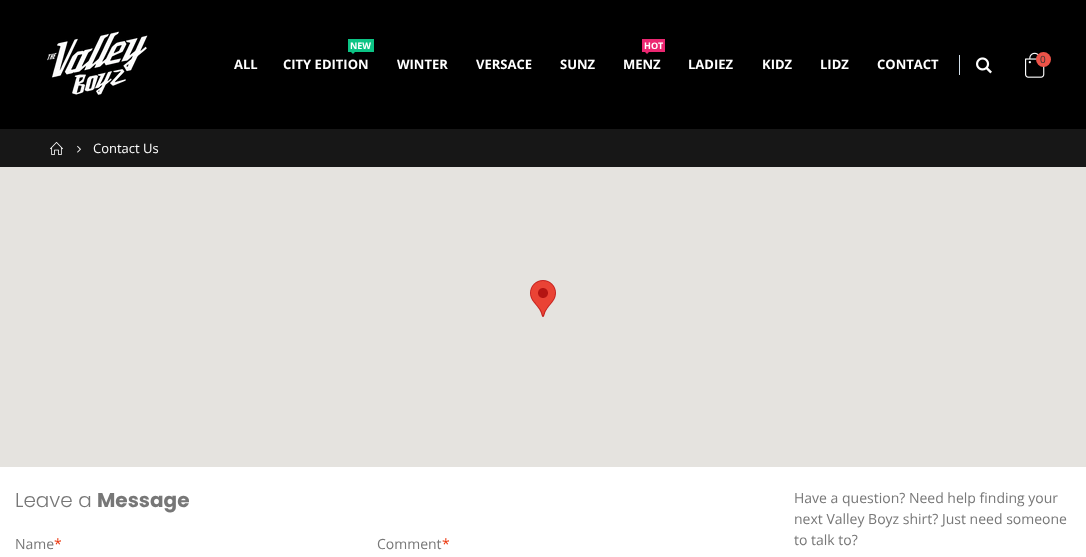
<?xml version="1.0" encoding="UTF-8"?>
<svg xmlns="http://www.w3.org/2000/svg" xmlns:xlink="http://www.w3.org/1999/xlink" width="1086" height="557">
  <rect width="100%" height="100%" fill="#ffffff" />
  <rect width="1086" height="129" fill="#000000" />
  <image x="47" y="31" width="101" height="64" xlink:href="image1.png" />
  <rect x="348" y="39" width="26" height="13" fill="#0cc485" />
  <path d="M 351 52 h 4 l -2 2 z" fill="#0cc485" />
  <rect x="642" y="39" width="23" height="13" fill="#eb2771" />
  <path d="M 645 52 h 4 l -2 2 z" fill="#eb2771" />
  <rect x="959" y="55" width="1" height="20" fill="#d1dee9" />
  <image x="976" y="57" width="16" height="17" xlink:href="image2.png" />
  <image x="1025" y="52" width="20" height="26" xlink:href="image3.png" />
  <circle cx="1043.5" cy="59.5" r="7.5" fill="#ed5348" />
  <rect y="129" width="1086" height="38" fill="#171717" />
  <image x="50" y="142" width="13" height="13" xlink:href="image4.png" />
  <image x="77" y="145" width="4" height="8" xlink:href="image5.png" />
  <rect y="167" width="1086" height="300" fill="#e5e3df" />
  <image x="530" y="280" width="26" height="37" xlink:href="image6.png" />
  <text x="234" y="69" style="font-family: Open Sans; font-size: 13px; font-weight: bold; fill: #ffffff">ALL</text>
  <text x="350" y="49" style="font-family: Open Sans; font-size: 9px; font-weight: bold; fill: #ffffff">NEW</text>
  <text x="283" y="69" style="font-family: Open Sans; font-size: 13px; font-weight: bold; fill: #ffffff">CITY EDITION</text>
  <text x="397" y="69" style="font-family: Open Sans; font-size: 13px; font-weight: bold; fill: #ffffff">WINTER</text>
  <text x="476" y="69" style="font-family: Open Sans; font-size: 13px; font-weight: bold; fill: #ffffff">VERSACE</text>
  <text x="560" y="69" style="font-family: Open Sans; font-size: 13px; font-weight: bold; fill: #ffffff">SUNZ</text>
  <text x="644" y="49" style="font-family: Open Sans; font-size: 9px; font-weight: bold; fill: #ffffff">HOT</text>
  <text x="623" y="69" style="font-family: Open Sans; font-size: 13px; font-weight: bold; fill: #ffffff">MENZ</text>
  <text x="688" y="69" style="font-family: Open Sans; font-size: 13px; font-weight: bold; fill: #ffffff">LADIEZ</text>
  <text x="762" y="69" style="font-family: Open Sans; font-size: 13px; font-weight: bold; fill: #ffffff">KIDZ</text>
  <text x="820" y="69" style="font-family: Open Sans; font-size: 13px; font-weight: bold; fill: #ffffff">LIDZ</text>
  <text x="877" y="69" style="font-family: Open Sans; font-size: 13px; font-weight: bold; fill: #ffffff">CONTACT</text>
  <text x="1040" y="63" style="font-family: Open Sans; font-size: 10px; fill: #333333">0</text>
  <text x="93" y="153" style="font-family: Open Sans; font-size: 13px; fill: #ffffff">Contact Us</text>
  <text x="15" y="507" style="font-family: Poppins; font-size: 20px; font-weight: 300; fill: #777777">Leave a</text>
  <text x="97" y="507" style="font-family: Poppins; font-size: 20px; font-weight: bold; fill: #777777">Message</text>
  <text x="15" y="549" style="font-family: Open Sans; font-size: 14px; fill: #777777">Name</text>
  <text x="54" y="549" style="font-family: Open Sans; font-size: 14px; fill: #eb340a">*</text>
  <text x="377" y="549" style="font-family: Open Sans; font-size: 14px; fill: #777777">Comment</text>
  <text x="442" y="549" style="font-family: Open Sans; font-size: 14px; fill: #eb340a">*</text>
  <text x="794" y="503" style="font-family: Open Sans; font-size: 14px; fill: #777777">Have a question? Need help finding your</text>
  <text x="794" y="524" style="font-family: Open Sans; font-size: 14px; fill: #777777">next Valley Boyz shirt? Just need someone</text>
  <text x="794" y="545" style="font-family: Open Sans; font-size: 14px; fill: #777777">to talk to?</text>
</svg>
